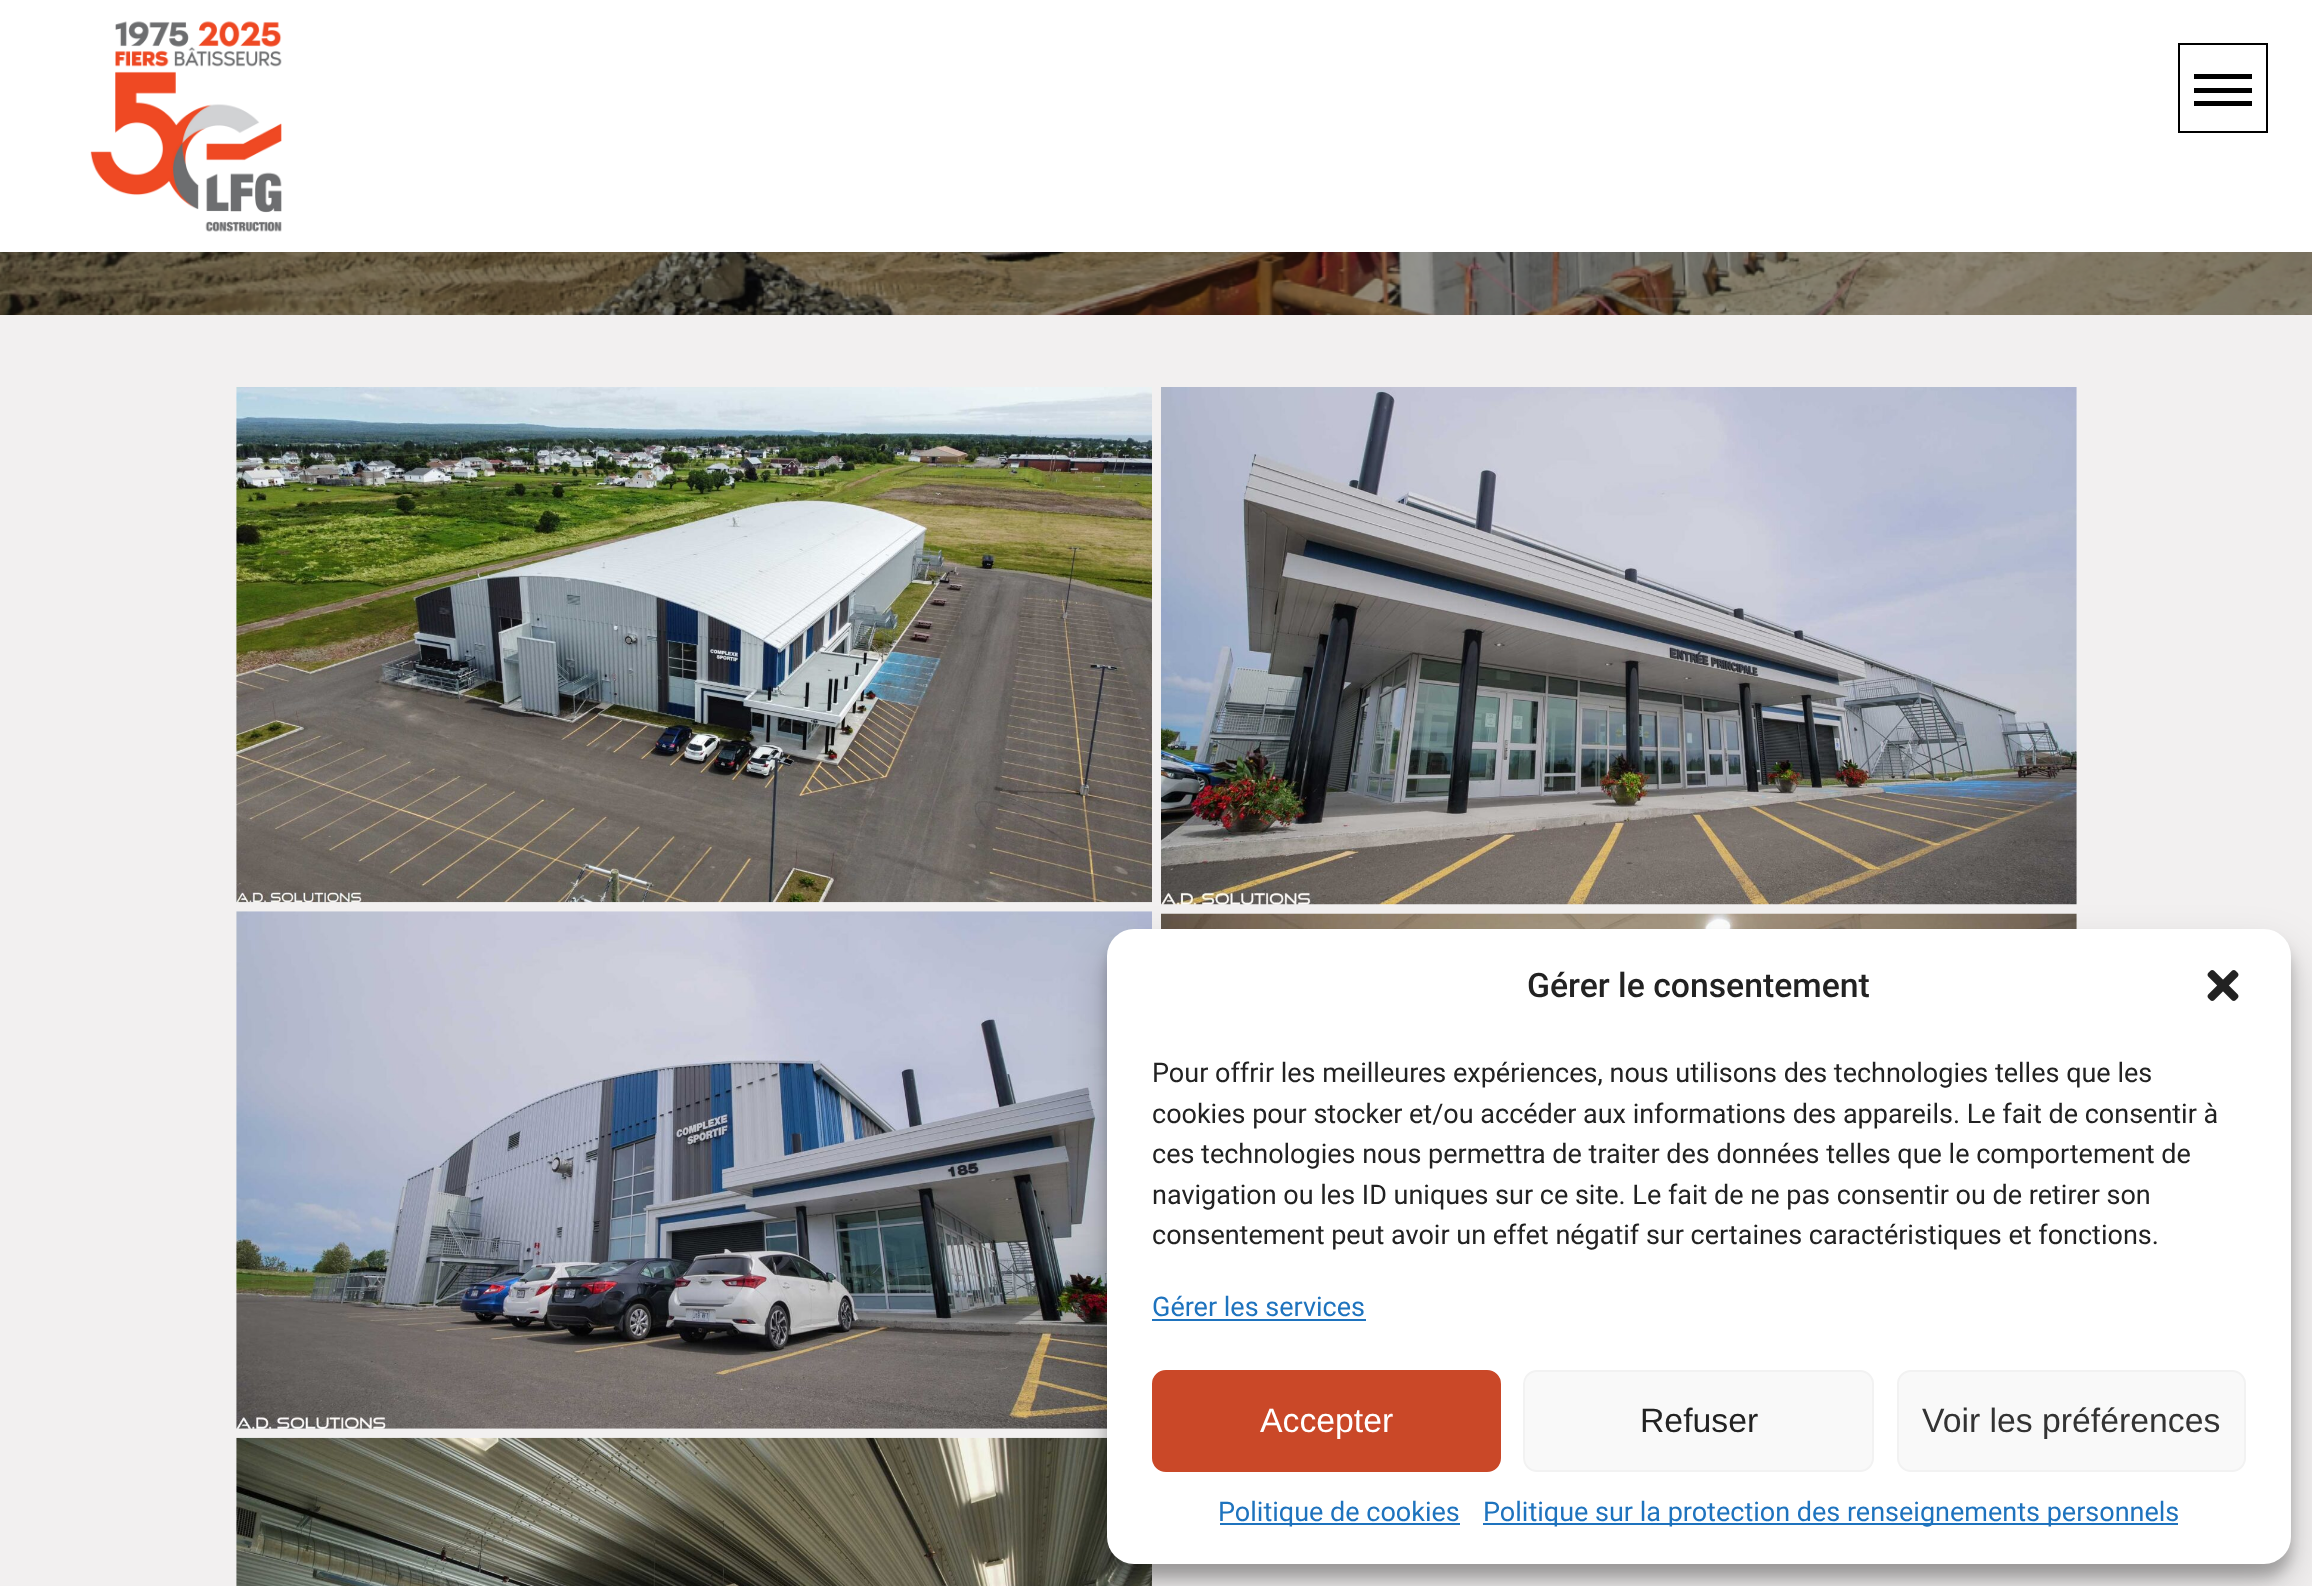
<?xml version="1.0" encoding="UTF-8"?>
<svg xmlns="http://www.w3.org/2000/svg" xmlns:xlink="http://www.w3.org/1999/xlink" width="2312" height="1586">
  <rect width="100%" height="100%" fill="#ffffff" />
  <image x="90" y="21" width="192" height="211" xlink:href="image1.png" />
  <rect x="2179" y="44" width="88" height="88" fill="none" stroke="#000000" stroke-width="2" />
  <rect x="2194" y="74" width="58" height="5" fill="#000000" />
  <rect x="2194" y="88" width="58" height="5" fill="#000000" />
  <rect x="2194" y="101" width="58" height="5" fill="#000000" />
  <image x="0" y="252" width="2312" height="63" xlink:href="image2.png" />
  <rect y="315" width="2312" height="1271" fill="#f2f0f0" />
  <image x="236" y="387" width="916" height="516" xlink:href="image3.png" />
  <image x="1161" y="387" width="916" height="518" xlink:href="image4.png" />
  <image x="236" y="911" width="916" height="518" xlink:href="image5.png" />
  <image x="1161" y="913" width="916" height="16" xlink:href="image6.png" />
  <image x="236" y="1437" width="916" height="149" xlink:href="image7.png" />
  <rect x="1107" y="943" width="1184" height="634" rx="27" fill="#000000" fill-opacity="0.23" filter="blur(7px)" />
  <rect x="1107" y="952" width="1184" height="634" rx="27" fill="#000000" fill-opacity="0.19" filter="blur(22.5px)" />
  <rect x="1107" y="929" width="1184" height="635" rx="27" fill="#ffffff" />
  <image x="2207" y="970" width="32" height="31" xlink:href="image8.png" />
  <rect x="1152" y="1319" width="214" height="2" fill="#1e73be" />
  <rect x="1153" y="1371" width="347" height="100" rx="13" fill="#ca4828" stroke="#ca4828" stroke-width="2" />
  <rect x="1524" y="1371" width="349" height="100" rx="13" fill="#f9f9f9" stroke="#f2f2f2" stroke-width="2" />
  <rect x="1898" y="1371" width="347" height="100" rx="13" fill="#f9f9f9" stroke="#f2f2f2" stroke-width="2" />
  <rect x="1220" y="1523" width="240" height="2" fill="#1e73be" />
  <rect x="1483" y="1523" width="695" height="2" fill="#1e73be" />
  <text x="1527" y="997" style="font-family: Roboto; font-size: 33.75px; font-weight: 500; fill: #222222">Gérer le consentement</text>
  <text x="1152" y="1082" style="font-family: Roboto; font-size: 27px; fill: #222222">Pour offrir les meilleures expériences, nous utilisons des technologies telles que les</text>
  <text x="1152" y="1123" style="font-family: Roboto; font-size: 27px; fill: #222222">cookies pour stocker et/ou accéder aux informations des appareils. Le fait de consentir à</text>
  <text x="1152" y="1163" style="font-family: Roboto; font-size: 27px; fill: #222222">ces technologies nous permettra de traiter des données telles que le comportement de</text>
  <text x="1152" y="1204" style="font-family: Roboto; font-size: 27px; fill: #222222">navigation ou les ID uniques sur ce site. Le fait de ne pas consentir ou de retirer son</text>
  <text x="1152" y="1244" style="font-family: Roboto; font-size: 27px; fill: #222222">consentement peut avoir un effet négatif sur certaines caractéristiques et fonctions.</text>
  <text x="1152" y="1316" style="font-family: Roboto; font-size: 27px; fill: #1e73be">Gérer les services</text>
  <text x="1260" y="1432" style="font-family: Liberation Sans; font-size: 33.75px; fill: #ffffff">Accepter</text>
  <text x="1640" y="1432" style="font-family: Liberation Sans; font-size: 33.75px; fill: #222222">Refuser</text>
  <text x="1922" y="1432" style="font-family: Liberation Sans; font-size: 33.75px; fill: #333333">Voir les préférences</text>
  <text x="1218" y="1521" style="font-family: Roboto; font-size: 27px; fill: #1e73be">Politique de cookies</text>
  <text x="1483" y="1521" style="font-family: Roboto; font-size: 27px; fill: #1e73be">Politique sur la protection des renseignements personnels</text>
</svg>
